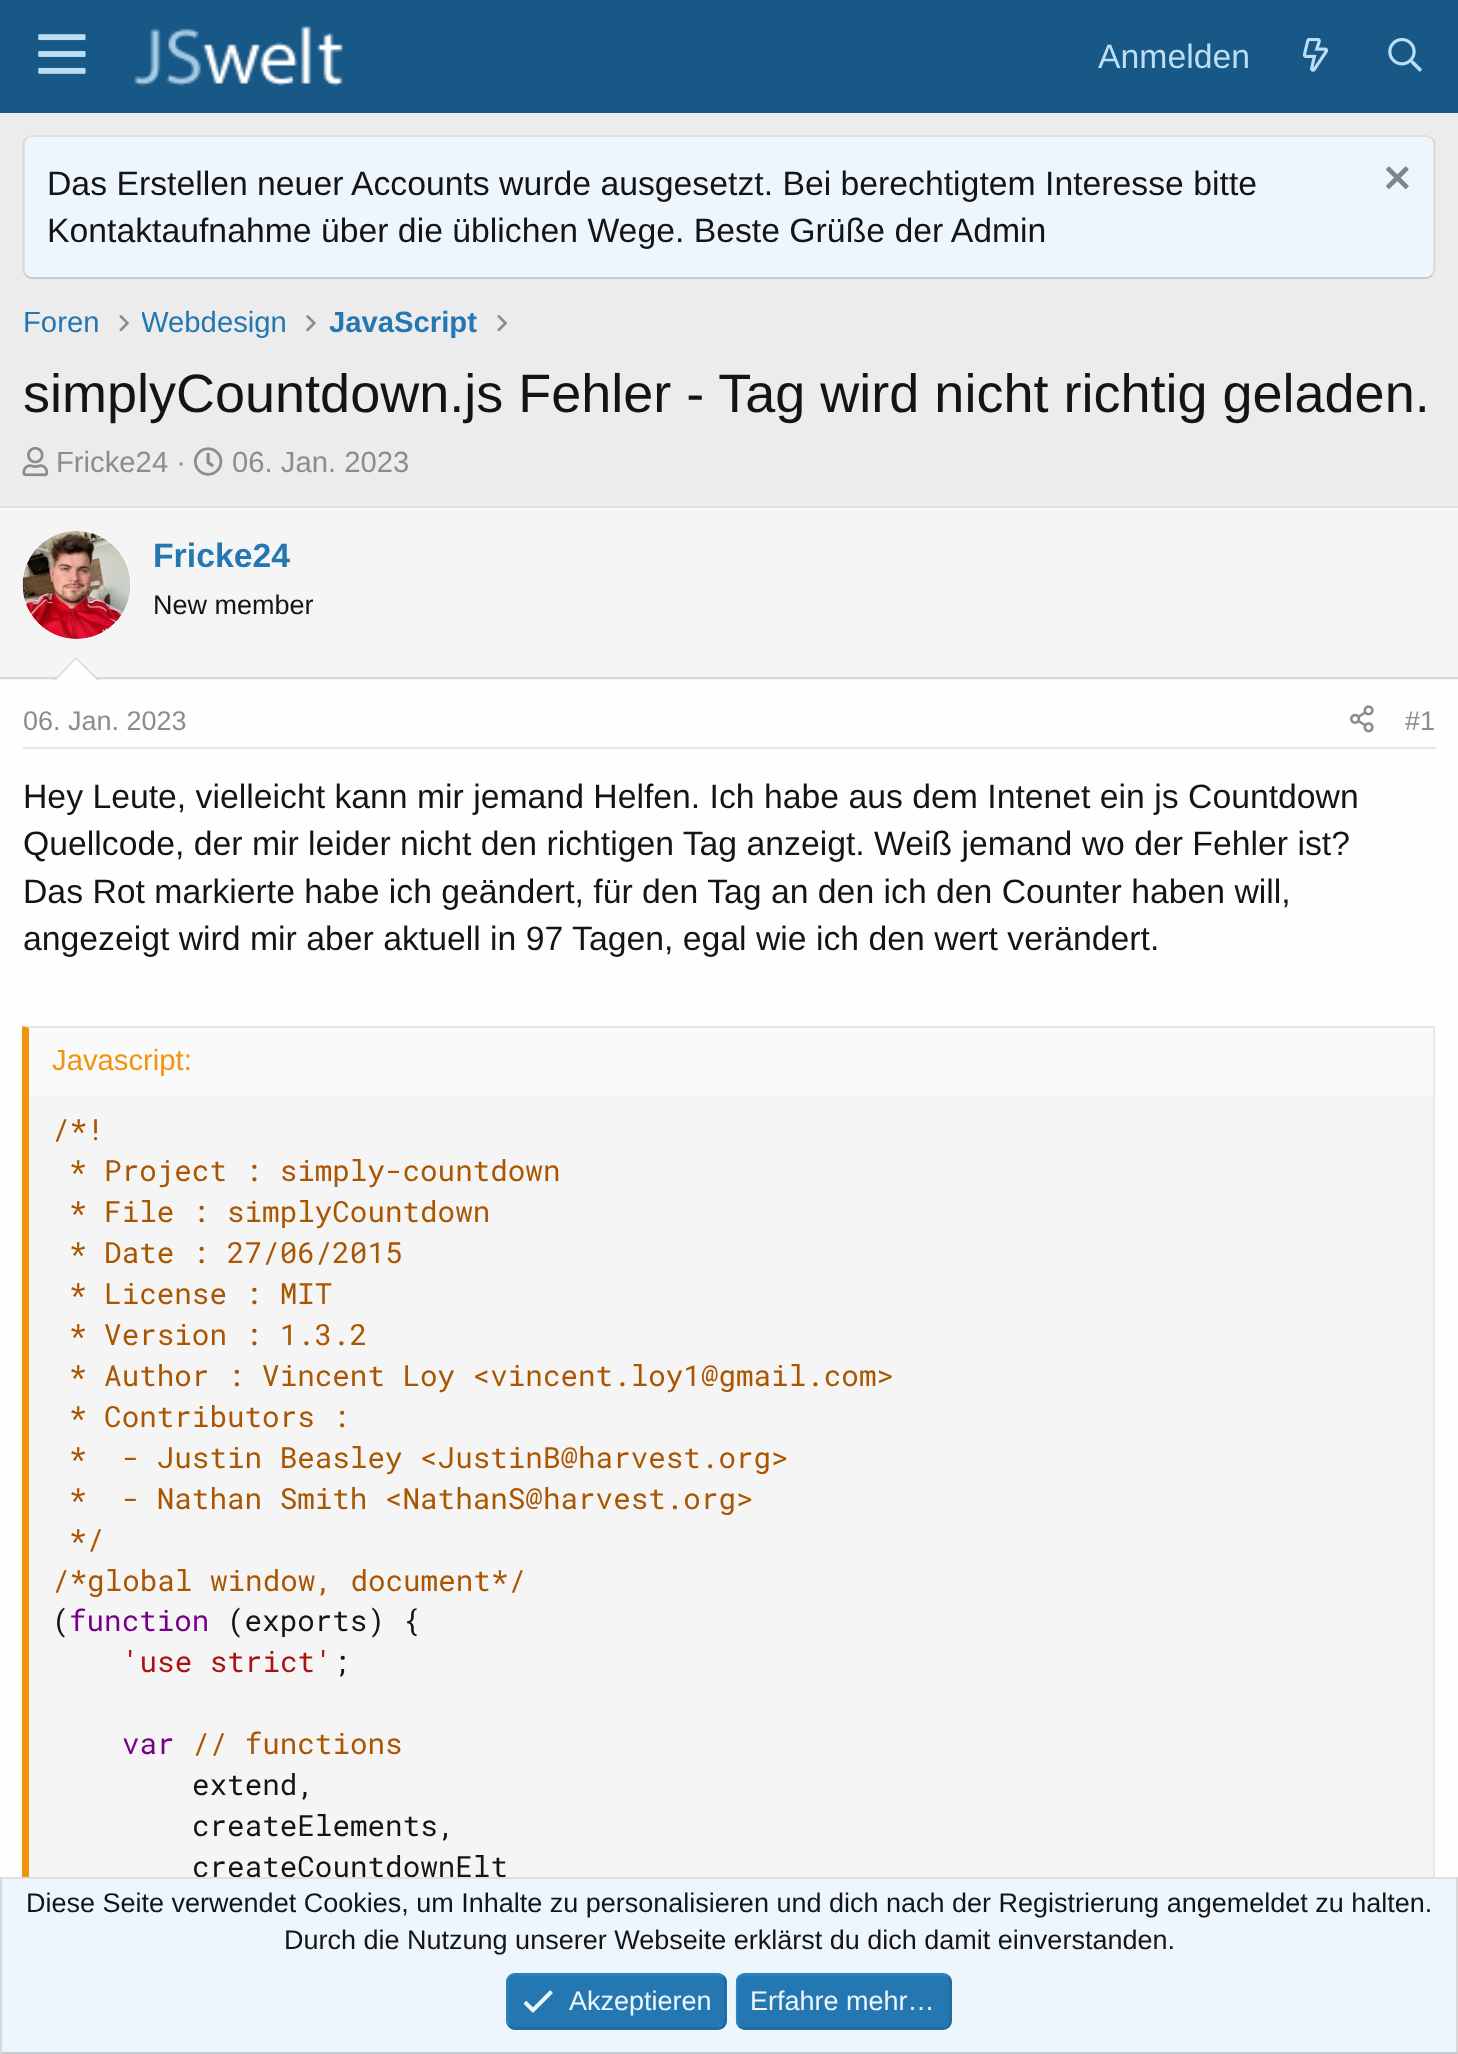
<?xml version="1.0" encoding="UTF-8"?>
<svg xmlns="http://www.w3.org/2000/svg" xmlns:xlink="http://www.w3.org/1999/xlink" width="1458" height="2054">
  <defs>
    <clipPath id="clip1"><rect x="142" y="302" width="144" height="42" /></clipPath>
  </defs>
  <rect width="100%" height="100%" fill="#ececec" />
  <rect width="1458" height="113" fill="#185886" />
  <image x="38" y="34" width="48" height="40" xlink:href="image1.png" />
  <image x="134" y="26" width="209" height="60" xlink:href="image2.png" />
  <image x="1302" y="38" width="27" height="34" xlink:href="image3.png" />
  <image x="1388" y="38" width="34" height="34" xlink:href="image4.png" />
  <rect x="23" y="135" width="1413" height="144" rx="9" fill="#edf6fd" />
  <path d="M 26 138.5 c 1.5 -1.5 3.5 -2.5 5.5 -2.5 h 1395 c 2 0 4 1 5.5 2.5" fill="none" stroke="#dfdfdf" stroke-width="2.2" />
  <path d="M 1432 138.5 c 1.5 1.5 2.5 3.5 2.5 5.5 v 126 c 0 2 -1 4 -2.5 5.5" fill="none" stroke="#d8d8d8" stroke-width="2.2" />
  <path d="M 1432 275.5 c -1.5 1.5 -3.5 2.5 -5.5 2.5 h -1395 c -2 0 -4 -1 -5.5 -2.5" fill="none" stroke="#cbcbcb" stroke-width="2.2" />
  <path d="M 26 275.5 c -1.5 -1.5 -2.5 -3.5 -2.5 -5.5 v -126 c 0 -2 1 -4 2.5 -5.5" fill="none" stroke="#d8d8d8" stroke-width="2.2" />
  <image x="1386" y="166" width="23" height="23" xlink:href="image5.png" />
  <image x="119" y="315" width="11" height="17" xlink:href="image6.png" />
  <image x="306" y="315" width="10" height="17" xlink:href="image7.png" />
  <image x="497" y="315" width="11" height="17" xlink:href="image6.png" />
  <image x="22" y="446" width="27" height="31" xlink:href="image8.png" />
  <image x="194" y="447" width="29" height="29" xlink:href="image9.png" />
  <rect y="508" width="1458" height="1369" fill="#fefefe" />
  <rect y="506" width="1458" height="2" fill="#dfdfdf" />
  <rect y="509" width="1458" height="171" fill="#f5f5f5" />
  <rect y="677" width="1458" height="2" fill="#d8d8d8" />
  <circle cx="77" cy="585" r="54" fill="#fefefe" />
  <image x="22" y="531" width="109" height="108" xlink:href="image10.png" />
  <path d="M 99 680 h -45 l 22 -23 z" fill="#d8d8d8" />
  <path d="M 97 680 h -41 l 20 -21 z" fill="#fefefe" />
  <rect x="23" y="747" width="1413" height="2" fill="#e7e7e7" />
  <image x="1350" y="705" width="24" height="28" xlink:href="image11.png" />
  <rect x="29" y="1096" width="1404" height="781" fill="#f5f5f5" />
  <path d="M 22 1026 h 1414 l -3 2 h -1404 z" fill="#e7e7e7" />
  <rect x="1433" y="1026" width="2" height="851" fill="#e7e7e7" />
  <path d="M 22 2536 v -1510 l 7 2 v 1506 z" fill="#f2930d" />
  <rect x="29" y="1028" width="1404" height="68" fill="#fafafa" />
  <rect x="2" y="1879" width="1454" height="173" fill="#edf6fd" />
  <rect x="506" y="1973" width="221" height="57" rx="9" fill="#2577b1" />
  <path d="M 723.5 1976.5 c 3 3.5 2 8 2 12 v 19.5 c 0 6 3 20.5 -7.5 20.5 h -203 c -2 0 -4 -1 -5.5 -2.5" fill="none" stroke="#21699c" stroke-width="2.2" />
  <path d="M 509.5 2026 c -3 -3 -2 -8 -2 -12 v -19 c 0 -6 -3 -20.5 7.5 -20.5 h 203 c 2 0 4 0.5 5.5 2" fill="none" stroke="#2985c6" stroke-width="2.2" />
  <image x="523" y="1990" width="30" height="23" xlink:href="image12.png" />
  <rect x="736" y="1973" width="216" height="57" rx="9" fill="#2577b1" />
  <path d="M 948.5 1976.5 c 1.5 1.5 2 3.5 2 5.5 v 38.5 c 0 2 -0.5 4 -2 5.5 c -1.5 1.5 -3.5 2.5 -5.5 2.5 h -198 c -2.5 0 -4.5 -1 -6 -2.5" fill="none" stroke="#21699c" stroke-width="2.2" />
  <path d="M 739 2026 c -1.5 -1.5 -2 -3.5 -2 -5.5 v -38.5 c 0 -2 0.5 -4 2 -5.5 c 1.5 -1.5 3.5 -2 6 -2 h 198 c 2 0 4 0.5 5.5 2" fill="none" stroke="#2985c6" stroke-width="2.2" />
  <text x="1098" y="68" style="font-family: Liberation Sans; font-size: 33.75px; fill: #bcdef5">Anmelden</text>
  <text x="47" y="195" style="font-family: Liberation Sans; font-size: 33.75px; fill: #141414">Das Erstellen neuer Accounts wurde ausgesetzt. Bei berechtigtem Interesse bitte</text>
  <text x="47" y="242" style="font-family: Liberation Sans; font-size: 33.75px; fill: #141414">Kontaktaufnahme über die üblichen Wege. Beste Grüße der Admin</text>
  <text x="23" y="332" style="font-family: Liberation Sans; font-size: 29.25px; fill: #2577b1">Foren</text>
  <g clip-path="url(#clip1)">
    <text x="141" y="332" style="font-family: Liberation Sans; font-size: 29.25px; fill: #2577b1">Webdesign</text>
  </g>
  <text x="329" y="332" style="font-family: Liberation Sans; font-size: 29.25px; font-weight: bold; fill: #2577b1">JavaScript</text>
  <text x="23" y="412" style="font-family: Liberation Sans; font-size: 54px; fill: #141414">simplyCountdown.js Fehler - Tag wird nicht richtig geladen.</text>
  <text x="56" y="472" style="font-family: Liberation Sans; font-size: 29.25px; fill: #8c8c8c">Fricke24 ·</text>
  <text x="232" y="472" style="font-family: Liberation Sans; font-size: 29.25px; fill: #8c8c8c">06. Jan. 2023</text>
  <text x="153" y="567" style="font-family: Liberation Sans; font-size: 33.75px; font-weight: bold; fill: #2577b1">Fricke24</text>
  <text x="153" y="614" style="font-family: Liberation Sans; font-size: 27px; fill: #141414">New member</text>
  <text x="23" y="730" style="font-family: Liberation Sans; font-size: 27px; fill: #8c8c8c">06. Jan. 2023</text>
  <text x="1405" y="730" style="font-family: Liberation Sans; font-size: 27px; fill: #8c8c8c">#1</text>
  <text x="23" y="808" style="font-family: Liberation Sans; font-size: 33.75px; fill: #141414">Hey Leute, vielleicht kann mir jemand Helfen. Ich habe aus dem Intenet ein js Countdown</text>
  <text x="23" y="855" style="font-family: Liberation Sans; font-size: 33.75px; fill: #141414">Quellcode, der mir leider nicht den richtigen Tag anzeigt. Weiß jemand wo der Fehler ist?</text>
  <text x="23" y="903" style="font-family: Liberation Sans; font-size: 33.75px; fill: #141414">Das Rot markierte habe ich geändert, für den Tag an den ich den Counter haben will,</text>
  <text x="23" y="950" style="font-family: Liberation Sans; font-size: 33.75px; fill: #141414">angezeigt wird mir aber aktuell in 97 Tagen, egal wie ich den wert verändert.</text>
  <text x="52" y="1070" style="font-family: Liberation Sans; font-size: 29.25px; fill: #f2930d">Javascript:</text>
  <text x="52" y="1140" style="font-family: Roboto Mono; font-size: 29.25px; fill: #aa5500">/*!</text>
  <text x="69" y="1181" style="font-family: Roboto Mono; font-size: 29.25px; fill: #aa5500">* Project : simply-countdown</text>
  <text x="69" y="1222" style="font-family: Roboto Mono; font-size: 29.25px; fill: #aa5500">* File : simplyCountdown</text>
  <text x="69" y="1263" style="font-family: Roboto Mono; font-size: 29.25px; fill: #aa5500">* Date : 27/06/2015</text>
  <text x="69" y="1304" style="font-family: Roboto Mono; font-size: 29.25px; fill: #aa5500">* License : MIT</text>
  <text x="69" y="1345" style="font-family: Roboto Mono; font-size: 29.25px; fill: #aa5500">* Version : 1.3.2</text>
  <text x="69" y="1386" style="font-family: Roboto Mono; font-size: 29.25px; fill: #aa5500">* Author : Vincent Loy &lt;vincent.loy1@gmail.com&gt;</text>
  <text x="69" y="1427" style="font-family: Roboto Mono; font-size: 29.25px; fill: #aa5500">* Contributors :</text>
  <text x="69" y="1468" style="font-family: Roboto Mono; font-size: 29.25px; fill: #aa5500" xml:space="preserve">*  - Justin Beasley &lt;JustinB@harvest.org&gt;</text>
  <text x="69" y="1509" style="font-family: Roboto Mono; font-size: 29.25px; fill: #aa5500" xml:space="preserve">*  - Nathan Smith &lt;NathanS@harvest.org&gt;</text>
  <text x="69" y="1550" style="font-family: Roboto Mono; font-size: 29.25px; fill: #aa5500">*/</text>
  <text x="52" y="1591" style="font-family: Roboto Mono; font-size: 29.25px; fill: #aa5500">/*global window, document*/</text>
  <text x="52" y="1631" style="font-family: Roboto Mono; font-size: 29.25px; fill: #141414">(</text>
  <text x="69" y="1631" style="font-family: Roboto Mono; font-size: 29.25px; fill: #770088">function</text>
  <text x="227" y="1631" style="font-family: Roboto Mono; font-size: 29.25px; fill: #141414">(exports) {</text>
  <text x="122" y="1672" style="font-family: Roboto Mono; font-size: 29.25px; fill: #aa1111">'use strict'</text>
  <text x="333" y="1672" style="font-family: Roboto Mono; font-size: 29.25px; fill: #141414">;</text>
  <text x="122" y="1754" style="font-family: Roboto Mono; font-size: 29.25px; fill: #770088">var</text>
  <text x="192" y="1754" style="font-family: Roboto Mono; font-size: 29.25px; fill: #aa5500">// functions</text>
  <text x="192" y="1795" style="font-family: Roboto Mono; font-size: 29.25px; fill: #141414">extend,</text>
  <text x="192" y="1836" style="font-family: Roboto Mono; font-size: 29.25px; fill: #141414">createElements,</text>
  <text x="192" y="1877" style="font-family: Roboto Mono; font-size: 29.25px; fill: #141414">createCountdownElt</text>
  <rect y="1877" width="1458" height="2" fill="#dfdfdf" />
  <rect x="1456" y="1877" width="2" height="177" fill="#d8d8d8" />
  <rect y="2052" width="1458" height="2" fill="#cbcbcb" />
  <rect y="1877" width="2" height="177" fill="#d8d8d8" />
  <text x="26" y="1912" style="font-family: Liberation Sans; font-size: 27px; fill: #141414">Diese Seite verwendet Cookies, um Inhalte zu personalisieren und dich nach der Registrierung angemeldet zu halten.</text>
  <text x="284" y="1949" style="font-family: Liberation Sans; font-size: 27px; fill: #141414">Durch die Nutzung unserer Webseite erklärst du dich damit einverstanden.</text>
  <text x="569" y="2010" style="font-family: Liberation Sans; font-size: 27px; fill: #edf6fd">Akzeptieren</text>
  <text x="750" y="2010" style="font-family: Liberation Sans; font-size: 27px; fill: #edf6fd">Erfahre mehr…</text>
</svg>
